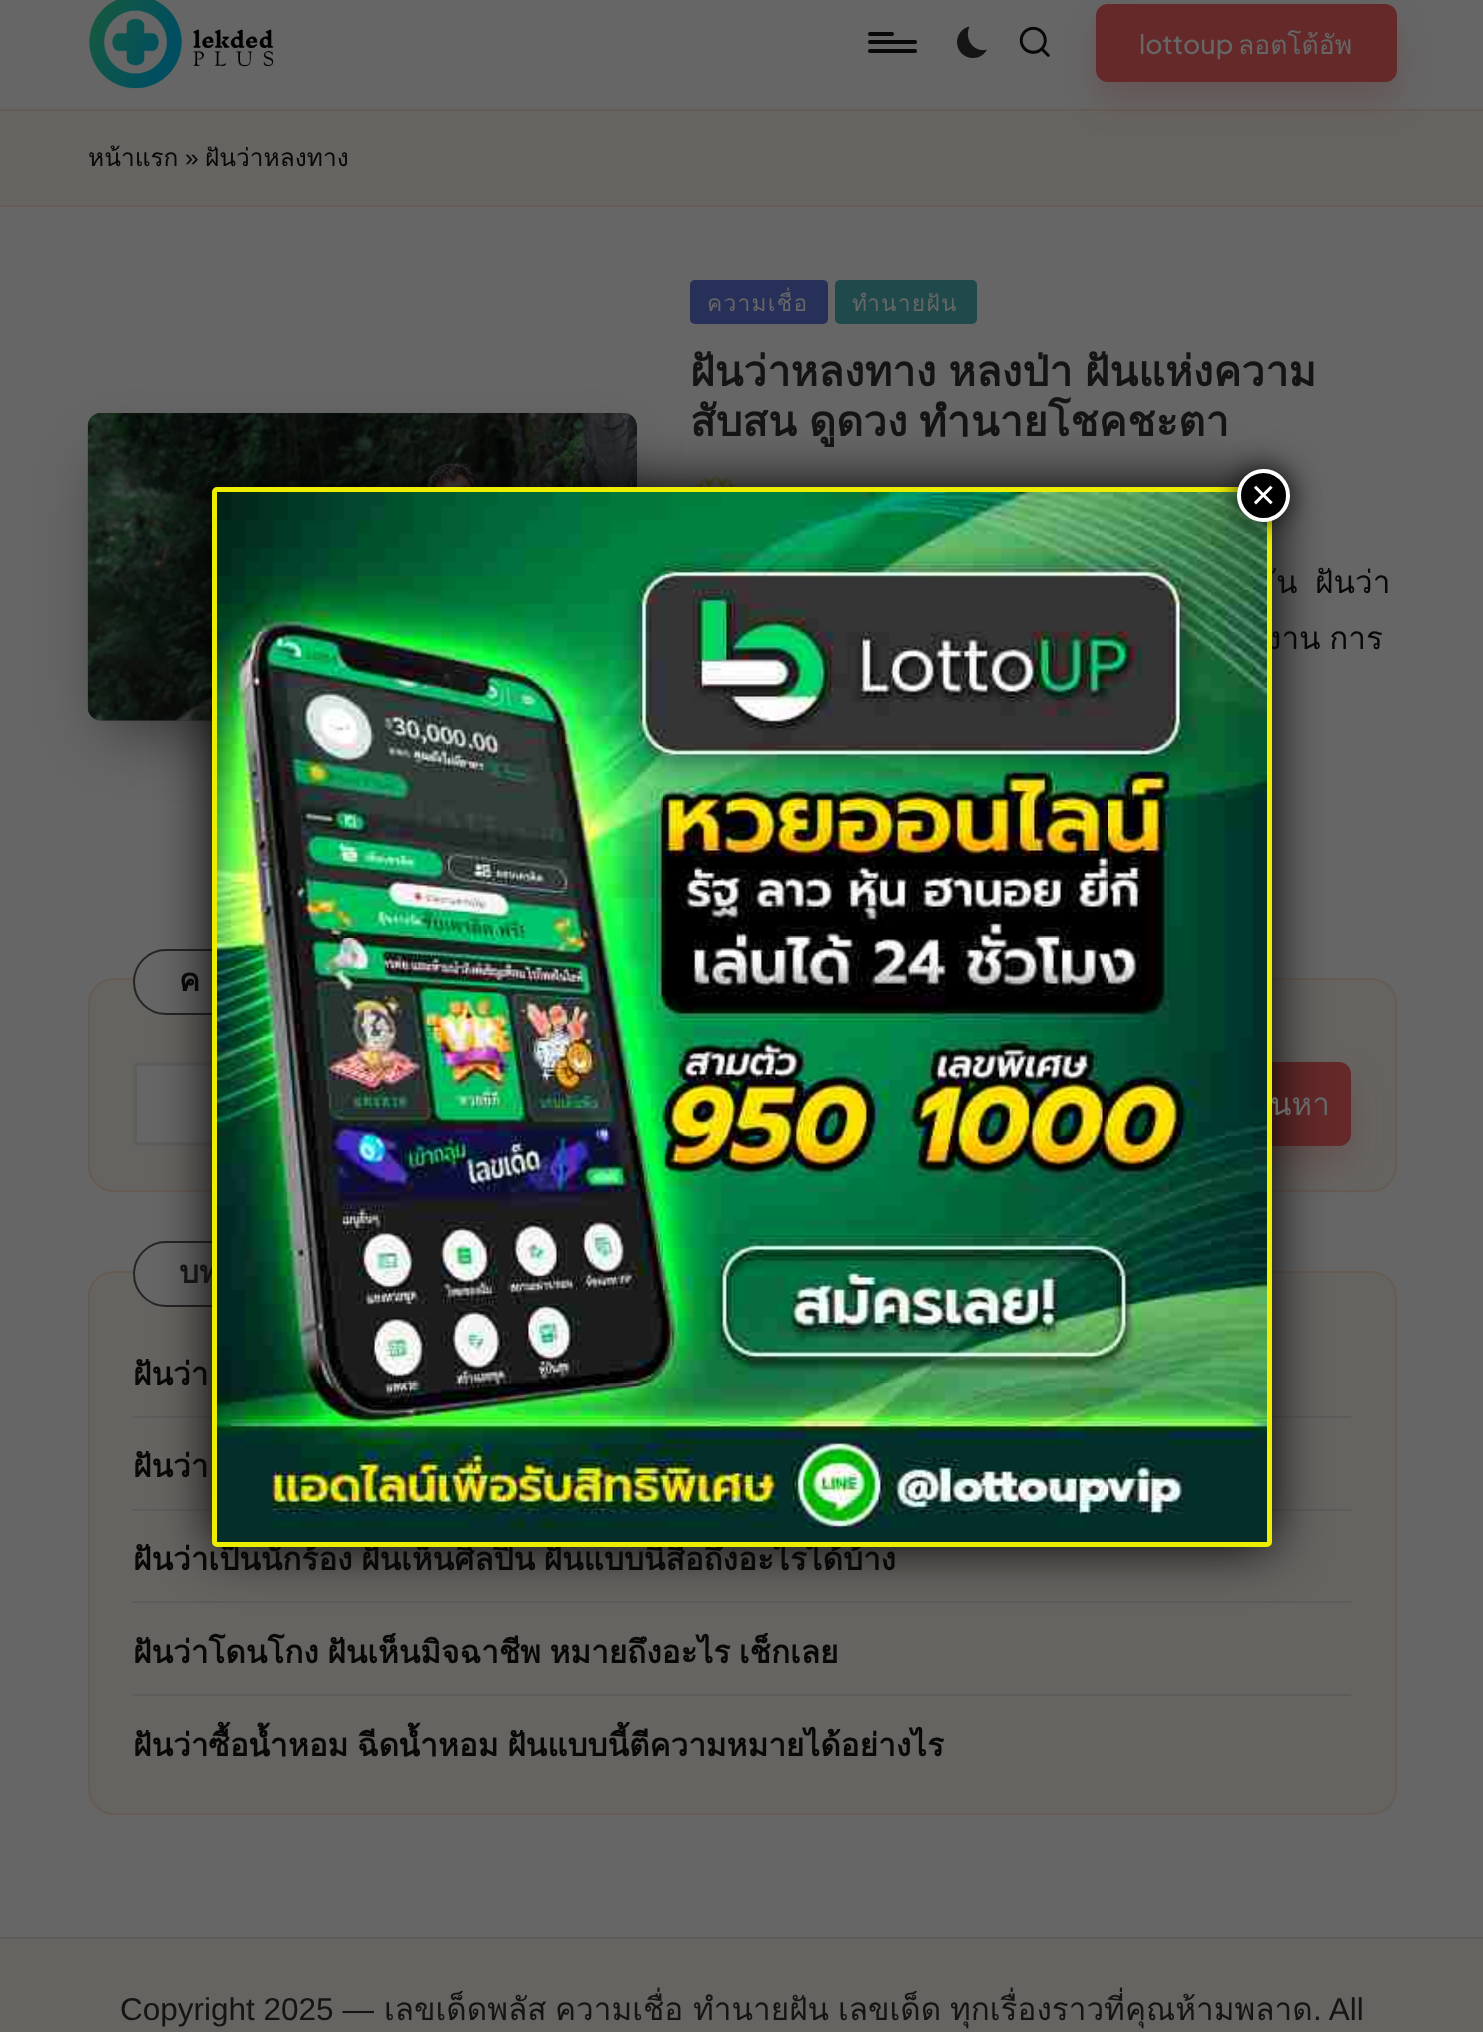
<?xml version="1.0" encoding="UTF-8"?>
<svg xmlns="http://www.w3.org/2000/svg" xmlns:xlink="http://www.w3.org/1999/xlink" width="1483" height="2032">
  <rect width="100%" height="100%" fill="#666666" />
  <image x="89" y="0" width="185" height="89" xlink:href="image1.png" />
  <rect x="868" y="40" width="49" height="4" rx="2" fill="#080808" />
  <rect x="868" y="32" width="26" height="4" rx="2" fill="#080808" />
  <rect x="868" y="49" width="49" height="4" rx="2" fill="#080808" />
  <path d="M 987 49.5 c -13.5 3.5 -23 -10.5 -17.5 -23 c -7 1.5 -12.5 8 -12.5 15.5 c 0 9 7 16 16 16 c 6 0 11.5 -3.5 14 -8.5 z" fill="#141414" />
  <image x="1019" y="26" width="31" height="31" xlink:href="image2.png" />
  <rect y="111" width="1483" height="94" fill="#666461" />
  <rect y="109" width="1483" height="2" fill="#665c54" />
  <rect x="1096" y="21" width="301" height="79" rx="12" fill="#65292a" fill-opacity="0.27" filter="blur(16px)" />
  <rect x="1097" y="5" width="299" height="76" rx="11" fill="#65292a" stroke="#65292a" stroke-width="2" />
  <rect y="205" width="1483" height="2" fill="#665c54" />
  <image x="694" y="476" width="44" height="11" xlink:href="image4.png" />
  <rect x="109" y="462" width="507" height="266" fill="#000000" fill-opacity="0.5" filter="blur(33px)" />
  <rect x="88" y="413" width="549" height="308" rx="14" fill="#000000" fill-opacity="0.18" />
  <image x="87" y="413" width="550" height="308" xlink:href="image3.png" />
  <rect x="690" y="280" width="138" height="44" rx="5" fill="#273059" />
  <rect x="835" y="280" width="142" height="44" rx="5" fill="#20494c" />
  <rect x="89" y="979" width="1307" height="212" rx="25" fill="#666461" stroke="#665c54" stroke-width="2" />
  <rect x="133" y="949" width="173" height="66" rx="33" fill="#666666" />
  <rect x="134" y="950" width="171" height="64" rx="32" fill="none" stroke="#101010" stroke-opacity="0.75" stroke-width="2" />
  <rect x="133" y="1062" width="1076" height="84" rx="5" fill="#666666" />
  <rect x="135" y="1064" width="1072" height="80" rx="3" fill="none" stroke="#4c4c4c" stroke-opacity="0.3" stroke-width="4" />
  <rect x="1227" y="1080" width="124" height="84" rx="12" fill="#65292a" fill-opacity="0.27" filter="blur(16px)" />
  <rect x="1228" y="1063" width="122" height="82" rx="11" fill="#65292a" stroke="#65292a" stroke-width="2" />
  <rect x="89" y="1272" width="1307" height="542" rx="25" fill="#666461" stroke="#665c54" stroke-width="2" />
  <rect x="133" y="1241" width="291" height="66" rx="33" fill="#666666" />
  <rect x="134" y="1242" width="289" height="64" rx="32" fill="none" stroke="#101010" stroke-opacity="0.75" stroke-width="2" />
  <rect x="133" y="1416" width="1218" height="2" fill="#5e5c5b" />
  <rect x="133" y="1509" width="1218" height="2" fill="#5e5c5b" />
  <rect x="133" y="1601" width="1218" height="2" fill="#5e5c5b" />
  <rect x="133" y="1694" width="1218" height="2" fill="#5e5c5b" />
  <rect y="1939" width="1483" height="93" fill="#666461" />
  <rect y="1937" width="1483" height="2" fill="#5c5a58" />
  <rect x="212" y="487" width="1060" height="1060" rx="5" fill="#020202" filter="blur(26px)" />
  <text x="1139" y="54" style="font-family: Plus Jakarta Sans; font-size: 26.5px; font-weight: 500; fill: #666666">lottoup</text>
  <text x="1238" y="54" style="font-family: Loma; font-size: 26.5px; fill: #666666">ลอตโต้อัพ</text>
  <text x="88" y="166" style="font-family: Loma; font-size: 24.5px; fill: #080808">หน้าแรก</text>
  <text x="185" y="166" style="font-family: Liberation Sans; font-size: 24.5px; fill: #080808">»</text>
  <text x="205" y="166" style="font-family: Loma; font-size: 24.5px; fill: #080808">ฝันว่าหลงทาง</text>
  <text x="707" y="311" style="font-family: Loma; font-size: 22.75px; letter-spacing: 1.25px; fill: #666666">ความเชื่อ</text>
  <text x="852" y="311" style="font-family: Loma; font-size: 22.75px; letter-spacing: 1.25px; fill: #666666">ทำนายฝัน</text>
  <text x="690" y="386" word-spacing="-2" style="font-family: Loma; font-size: 42px; font-weight: bold; fill: #141414">ฝันว่าหลงทาง หลงป่า ฝันแห่งความ</text>
  <text x="690" y="436" word-spacing="-2" style="font-family: Loma; font-size: 42px; font-weight: bold; fill: #141414">สับสน ดูดวง ทำนายโชคชะตา</text>
  <text x="1276" y="593" word-spacing="-2" style="font-family: Loma; font-size: 31.5px; fill: #080808">ัน</text>
  <text x="1315" y="593" word-spacing="-2" style="font-family: Loma; font-size: 31.5px; fill: #080808">ฝันว่า</text>
  <text x="1266" y="649" word-spacing="-2" style="font-family: Loma; font-size: 31.5px; fill: #080808">งาน การ</text>
  <text x="179" y="991" style="font-family: Loma; font-size: 31.5px; font-weight: bold; fill: #080808">ค</text>
  <text x="1270" y="1115" style="font-family: Loma; font-size: 31.5px; fill: #666666">นหา</text>
  <text x="179" y="1283" style="font-family: Loma; font-size: 31.5px; font-weight: bold; fill: #141414">บท</text>
  <text x="133" y="1385" word-spacing="-1" style="font-family: Loma; font-size: 31.5px; font-weight: bold; fill: #080808">ฝันว่า</text>
  <text x="133" y="1477" word-spacing="-2" style="font-family: Loma; font-size: 31.5px; font-weight: bold; fill: #080808">ฝันว่า</text>
  <text x="133" y="1570" word-spacing="-2" style="font-family: Loma; font-size: 31.5px; font-weight: bold; fill: #080808">ฝันว่าเป็นนักร้อง ฝันเห็นศิลปิน ฝันแบบนี้สื่อถึงอะไรได้บ้าง</text>
  <text x="133" y="1663" word-spacing="-2" style="font-family: Loma; font-size: 31.5px; font-weight: bold; fill: #080808">ฝันว่าโดนโกง ฝันเห็นมิจฉาชีพ หมายถึงอะไร เช็กเลย</text>
  <text x="133" y="1756" word-spacing="-2" style="font-family: Loma; font-size: 31.5px; font-weight: bold; fill: #080808">ฝันว่าซื้อน้ำหอม ฉีดน้ำหอม ฝันแบบนี้ตีความหมายได้อย่างไร</text>
  <text x="120" y="2020" style="font-family: Liberation Sans; font-size: 31.5px; fill: #141414">Copyright 2025 —</text>
  <text x="384" y="2020" style="font-family: Loma; font-size: 31.5px; fill: #141414">เลขเด็ดพลัส</text>
  <text x="555" y="2020" style="font-family: Loma; font-size: 31.5px; fill: #141414">ความเชื่อ</text>
  <text x="693" y="2020" style="font-family: Loma; font-size: 31.5px; fill: #141414">ทำนายฝัน</text>
  <text x="838" y="2020" style="font-family: Loma; font-size: 31.5px; fill: #141414">เลขเด็ด</text>
  <text x="950" y="2020" style="font-family: Loma; font-size: 31.5px; fill: #141414">ทุกเรื่องราวที่คุณห้ามพลาด</text>
  <text x="1313" y="2020" style="font-family: Liberation Sans; font-size: 31.5px; fill: #141414">. All</text>
  <rect x="214.5" y="489.5" width="1055" height="1055" rx="2.5" fill="none" stroke="#eded00" stroke-width="5" />
  <image x="217" y="492" width="1050" height="1050" xlink:href="image5.png" />
  <rect x="1236" y="467" width="56" height="56" rx="28" fill="#020202" fill-opacity="0.75" filter="blur(13px)" />
  <circle cx="1263.5" cy="495.5" r="24.5" fill="#000000" stroke="#ffffff" stroke-width="4" />
  <text x="1251" y="509" style="font-family: Liberation Sans; font-size: 42px; fill: #ffffff">×</text>
</svg>
